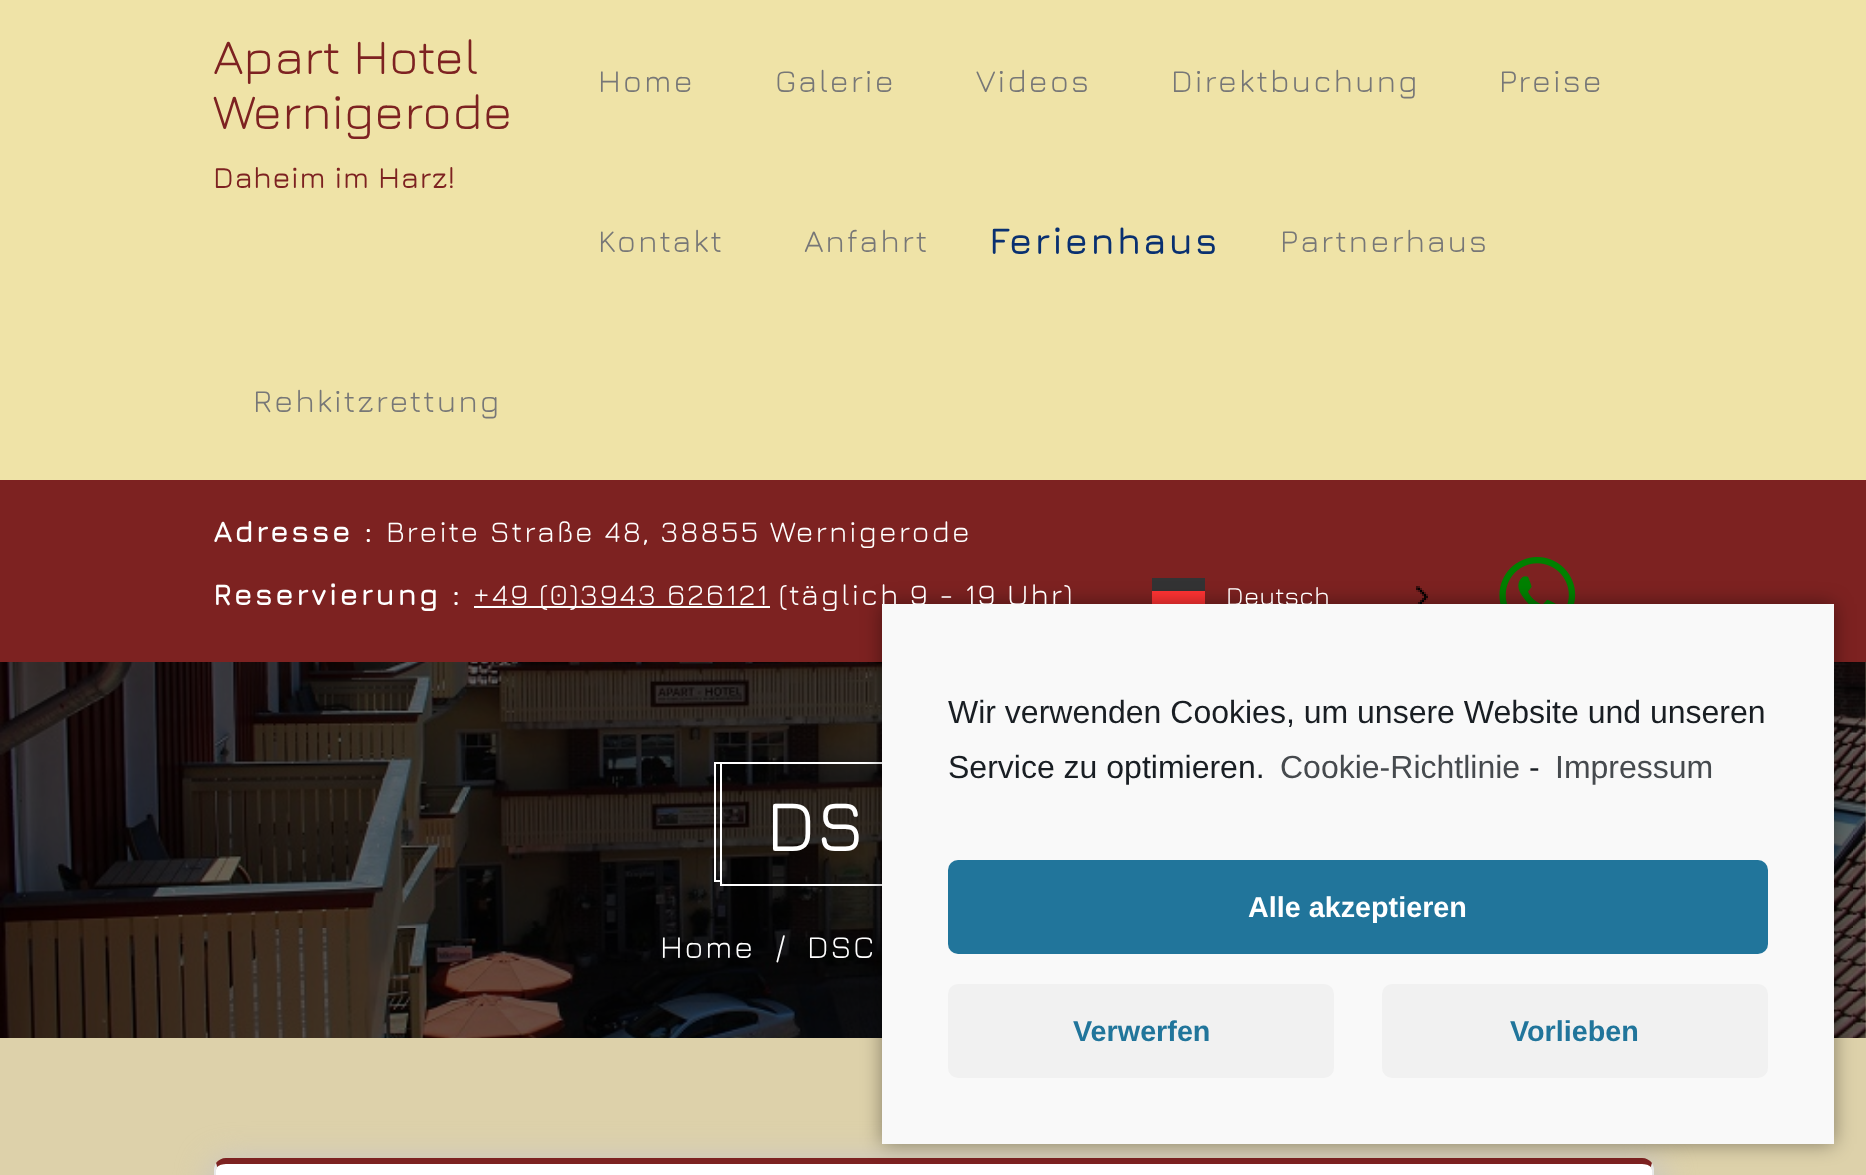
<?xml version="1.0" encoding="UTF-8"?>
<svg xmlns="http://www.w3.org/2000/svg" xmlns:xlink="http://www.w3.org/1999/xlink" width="1866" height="1175">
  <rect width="100%" height="100%" fill="#ddd1aa" />
  <rect width="1866" height="480" fill="#efe3a7" />
  <rect y="480" width="1866" height="182" fill="#7d2221" />
  <rect x="474" y="606" width="296" height="2" fill="#ffffff" />
  <rect x="1152" y="578" width="53" height="13" fill="#333334" />
  <rect x="1152" y="591" width="53" height="13" fill="#ff3333" />
  <image x="1416" y="586" width="12" height="18" xlink:href="image1.png" />
  <image x="1499" y="557" width="77" height="47" xlink:href="image2.png" />
  <image x="0" y="662" width="1866" height="376" xlink:href="image3.png" />
  <rect x="721" y="763" width="424" height="122" fill="none" stroke="#ffffff" stroke-width="2" />
  <rect x="714" y="762" width="6" height="2" fill="#ffffff" />
  <rect x="714" y="880" width="6" height="2" fill="#ffffff" />
  <rect x="714" y="762" width="2" height="120" fill="#ffffff" />
  <rect x="210" y="1160" width="1452" height="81" rx="18" fill="#c7c5c7" filter="blur(16px)" />
  <path d="M 226 1164 h 1416 c 6 0 10 3 10 6 v 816 h -1436 v -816 c 0 -3 4 -6 10 -6 z" fill="#ffffff" />
  <path d="M 226 1158 c -4 0 -8 2 -10 5 l 1 4 c 2 -2 5 -3 9 -3 h 1416 c 4 0 7 1 9 3 l 1 -4 c -2 -3 -6 -5 -10 -5 z" fill="#7d2221" />
  <path d="M 1654 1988 v -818 c 0 -3 -1 -5 -2 -7 l -1 4 l 1 3 v 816 z" fill="#e8e8e8" />
  <path d="M 214 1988 l 2 -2 v -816 l 1 -3 l -1 -4 c -1 2 -2 4 -2 7 z" fill="#e8e8e8" />
  <rect x="882" y="604" width="952" height="540" fill="#000000" fill-opacity="0.4" filter="blur(10px)" />
  <text x="213" y="74" style="font-family: Jura; font-size: 50px; fill: #7d2221">Apart Hotel</text>
  <text x="213" y="129" style="font-family: Jura; font-size: 50px; fill: #7d2221">Wernigerode</text>
  <text x="213" y="188" style="font-family: Jura; font-size: 30px; font-weight: 500; letter-spacing: 0.4px; fill: #7d2221">Daheim im Harz!</text>
  <text x="598" y="92" style="font-family: Jura; font-size: 32px; letter-spacing: 2px; fill: #777777">Home</text>
  <text x="775" y="92" style="font-family: Jura; font-size: 32px; letter-spacing: 2px; fill: #777777">Galerie</text>
  <text x="976" y="92" style="font-family: Jura; font-size: 32px; letter-spacing: 2px; fill: #777777">Videos</text>
  <text x="1171" y="92" style="font-family: Jura; font-size: 32px; letter-spacing: 2px; fill: #777777">Direktbuchung</text>
  <text x="1499" y="92" style="font-family: Jura; font-size: 32px; letter-spacing: 2px; fill: #777777">Preise</text>
  <text x="598" y="252" style="font-family: Jura; font-size: 32px; letter-spacing: 2px; fill: #777777">Kontakt</text>
  <text x="804" y="252" style="font-family: Jura; font-size: 32px; letter-spacing: 2px; fill: #777777">Anfahrt</text>
  <text x="989" y="254" style="font-family: Jura; font-size: 38px; font-weight: 600; letter-spacing: 2px; fill: #093070">Ferienhaus</text>
  <text x="1280" y="252" style="font-family: Jura; font-size: 32px; letter-spacing: 2px; fill: #777777">Partnerhaus</text>
  <text x="253" y="412" style="font-family: Jura; font-size: 32px; letter-spacing: 2px; fill: #777777">Rehkitzrettung</text>
  <text x="213" y="542" style="font-family: Jura; font-size: 30px; font-weight: bold; letter-spacing: 2px; fill: #ffffff">Adresse :</text>
  <text x="386" y="542" style="font-family: Jura; font-size: 30px; letter-spacing: 2px; fill: #ffffff">Breite Straße 48, 38855 Wernigerode</text>
  <text x="213" y="605" style="font-family: Jura; font-size: 30px; font-weight: bold; letter-spacing: 2px; fill: #ffffff">Reservierung :</text>
  <text x="473" y="605" style="font-family: Jura; font-size: 30px; letter-spacing: 2px; fill: #ffffff">+49 (0)3943 626121 (täglich 9 - 19 Uhr)</text>
  <text x="1226" y="605" style="font-family: Jura; font-size: 26px; fill: #ffffff">Deutsch</text>
  <text x="766" y="851" style="font-family: Jura; font-size: 72px; font-weight: 500; fill: #ffffff">DS</text>
  <text x="660" y="958" style="font-family: Jura; font-size: 32px; letter-spacing: 1.5px; fill: #ffffff">Home</text>
  <text x="775" y="958" style="font-family: Jura; font-size: 32px; letter-spacing: 1.5px; fill: #ffffff">/</text>
  <text x="807" y="958" style="font-family: Jura; font-size: 32px; letter-spacing: 1.5px; fill: #ffffff">DSC</text>
  <rect x="882" y="604" width="952" height="540" fill="#f9f9f9" />
  <text x="948" y="723" style="font-family: Liberation Sans; font-size: 32px; fill: #191e23">Wir verwenden Cookies, um unsere Website und unseren</text>
  <text x="948" y="778" style="font-family: Liberation Sans; font-size: 32px; fill: #191e23">Service zu optimieren.</text>
  <text x="1280" y="778" style="font-family: Liberation Sans; font-size: 32px; fill: #464a4e">Cookie-Richtlinie</text>
  <text x="1529" y="778" style="font-family: Liberation Sans; font-size: 32px; fill: #191e23">-</text>
  <text x="1555" y="778" style="font-family: Liberation Sans; font-size: 32px; fill: #464a4e">Impressum</text>
  <rect x="948" y="860" width="820" height="94" rx="10" fill="#21759b" />
  <text x="1248" y="917" style="font-family: Liberation Sans; font-size: 28.75px; font-weight: bold; fill: #ffffff">Alle akzeptieren</text>
  <rect x="948" y="984" width="386" height="94" rx="10" fill="#f1f1f1" />
  <text x="1073" y="1041" style="font-family: Liberation Sans; font-size: 28.75px; font-weight: bold; fill: #21759b">Verwerfen</text>
  <rect x="1382" y="984" width="386" height="94" rx="10" fill="#f1f1f1" />
  <text x="1510" y="1041" style="font-family: Liberation Sans; font-size: 28.75px; font-weight: bold; fill: #21759b">Vorlieben</text>
</svg>
